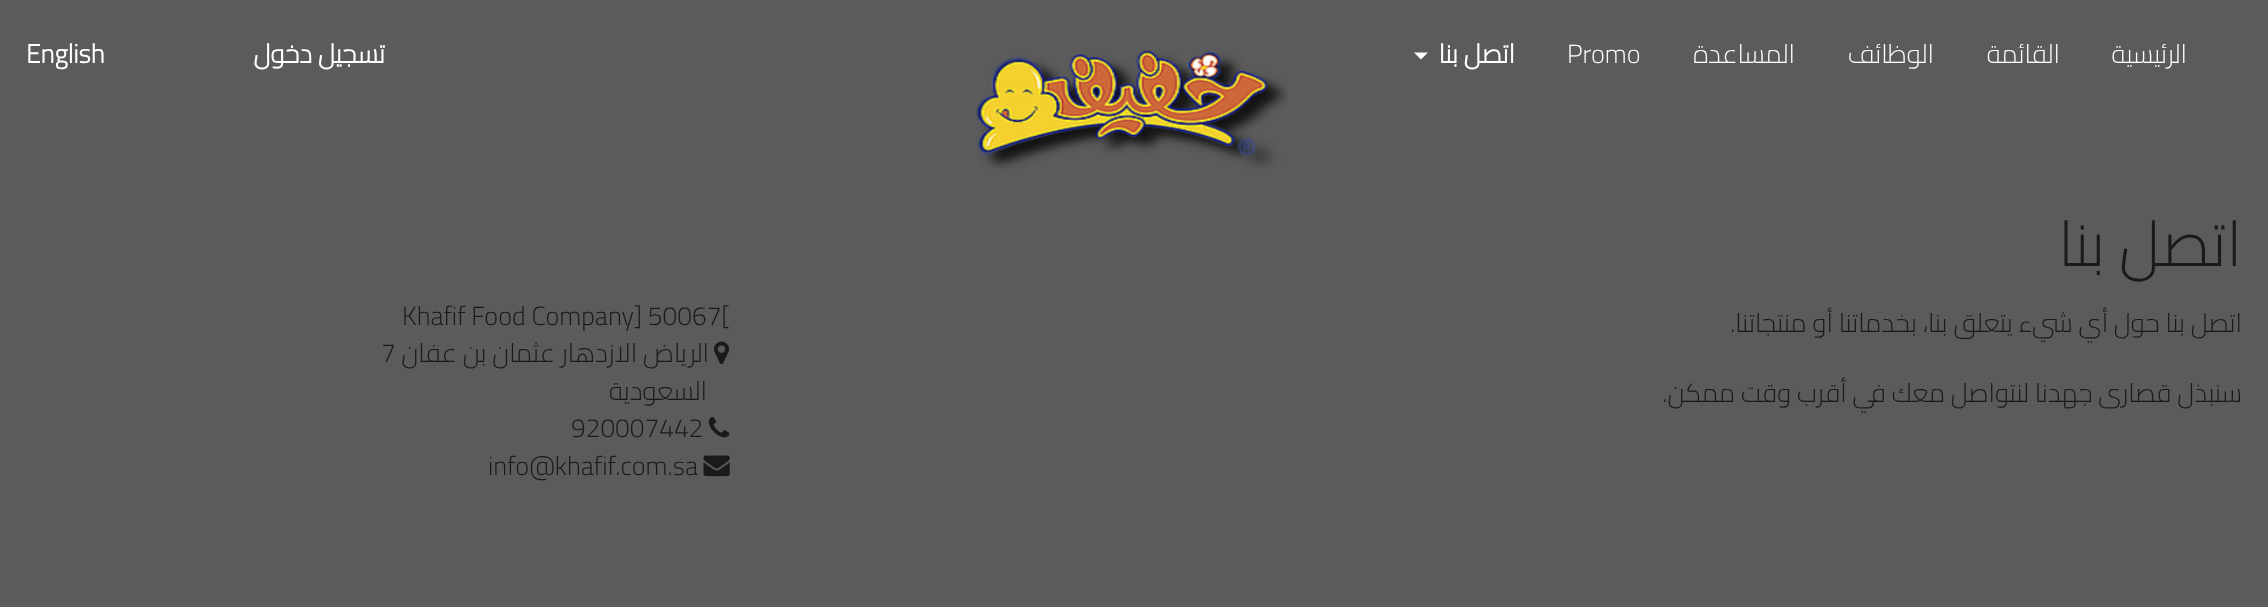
<?xml version="1.0" encoding="UTF-8"?>
<svg xmlns="http://www.w3.org/2000/svg" xmlns:xlink="http://www.w3.org/1999/xlink" width="2268" height="607">
  <rect width="100%" height="100%" fill="#5b5b5b" />
  <path d="M 1414 52.5 h 14 l -7 7 z" fill="#ffffff" />
  <image x="976" y="50" width="312" height="119" xlink:href="image1.png" />
  <image x="714" y="341" width="15" height="23" xlink:href="image2.png" />
  <image x="708" y="417" width="22" height="21" xlink:href="image3.png" />
  <image x="703" y="455" width="27" height="22" xlink:href="image4.png" />
  <text x="2187" y="63" style="font-family: Cairo; font-size: 26.25px; font-weight: 300; direction: rtl; fill: #ffffff">الرئيسية</text>
  <text x="2060" y="63" style="font-family: Cairo; font-size: 26.25px; font-weight: 300; direction: rtl; fill: #ffffff">القائمة</text>
  <text x="1934" y="63" style="font-family: Cairo; font-size: 26.25px; font-weight: 300; direction: rtl; fill: #ffffff">الوظائف</text>
  <text x="1795" y="63" style="font-family: Cairo; font-size: 26.25px; font-weight: 300; direction: rtl; fill: #ffffff">المساعدة</text>
  <text x="1567" y="63" style="font-family: Cairo; font-size: 26.25px; font-weight: 300; fill: #ffffff">Promo</text>
  <text x="1515" y="63" style="font-family: Cairo; font-size: 26.25px; font-weight: bold; direction: rtl; fill: #ffffff">اتصل بنا</text>
  <text x="385" y="63" style="font-family: Cairo; font-size: 26.25px; font-weight: bold; direction: rtl; fill: #ffffff">تسجيل دخول</text>
  <text x="26" y="63" style="font-family: Cairo; font-size: 26.25px; font-weight: bold; fill: #ffffff">English</text>
  <text x="2242" y="266" style="font-family: Cairo; font-size: 63px; font-weight: 300; direction: rtl; fill: #1a1a1a">اتصل بنا</text>
  <text x="2242" y="332" style="font-family: Cairo; font-size: 26.25px; font-weight: 300; direction: rtl; fill: #1a1a1a">اتصل بنا حول أي شيء يتعلق بنا، بخدماتنا أو منتجاتنا.</text>
  <text x="2242" y="402" style="font-family: Cairo; font-size: 26.25px; font-weight: 300; direction: rtl; fill: #1a1a1a">سنبذل قصارى جهدنا لنتواصل معك في أقرب وقت ممكن.</text>
  <text x="402" y="325" style="font-family: Cairo; font-size: 26.25px; font-weight: 300; fill: #1a1a1a">Khafif Food Company] 50067[</text>
  <text x="709" y="362" style="font-family: Cairo; font-size: 26.25px; font-weight: 300; direction: rtl; fill: #1a1a1a">الرياض الازدهار عثمان بن عفان</text>
  <text x="381" y="362" style="font-family: Cairo; font-size: 26.25px; font-weight: 300; fill: #1a1a1a">7</text>
  <text x="707" y="400" style="font-family: Cairo; font-size: 26.25px; font-weight: 300; direction: rtl; fill: #1a1a1a">السعودية</text>
  <text x="571" y="437" style="font-family: Cairo; font-size: 26.25px; font-weight: 300; fill: #1a1a1a">920007442</text>
  <text x="488" y="475" style="font-family: Cairo; font-size: 26.25px; font-weight: 300; fill: #1a1a1a">info@khafif.com.sa</text>
</svg>
